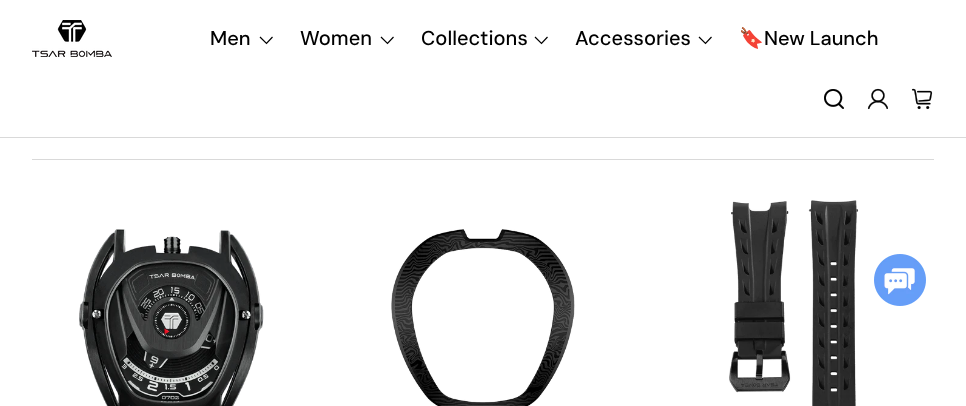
<?xml version="1.0" encoding="UTF-8"?>
<svg xmlns="http://www.w3.org/2000/svg" xmlns:xlink="http://www.w3.org/1999/xlink" width="966" height="406">
  <rect width="100%" height="100%" fill="#ffffff" />
  <rect y="137" width="966" height="1" fill="#d9d9d9" />
  <image x="32" y="20" width="80" height="37" xlink:href="image1.png" />
  <path d="M 272.5 37 l -6 6.5 l -6.5 -6.5" fill="none" stroke="#000000" stroke-width="1.2" />
  <path d="M 393.5 37 l -6 6.5 l -6.5 -6.5" fill="none" stroke="#000000" stroke-width="1.2" />
  <path d="M 547.5 37 l -6 6.5 l -6.5 -6.5" fill="none" stroke="#000000" stroke-width="1.2" />
  <path d="M 711.5 37 l -6 6.5 l -6.5 -6.5" fill="none" stroke="#000000" stroke-width="1.2" />
  <image x="824" y="89" width="20" height="20" xlink:href="image2.png" />
  <image x="867" y="88" width="21" height="22" xlink:href="image3.png" />
  <image x="911" y="88" width="22" height="22" xlink:href="image4.png" />
  <rect x="32" y="159" width="902" height="1" fill="#d9d9d9" />
  <image x="79" y="229" width="185" height="177" xlink:href="image5.png" />
  <image x="391" y="229" width="184" height="177" xlink:href="image6.png" />
  <image x="729" y="200" width="130" height="206" xlink:href="image7.png" />
  <image x="874" y="254" width="52" height="52" xlink:href="image8.png" />
  <text x="210" y="45" style="font-family: DM Sans; font-size: 20px; font-weight: 500; fill: #000000">Men</text>
  <text x="300" y="45" style="font-family: 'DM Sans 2'; font-size: 20px; font-weight: 500; fill: #000000">Women</text>
  <text x="421" y="45" style="font-family: 'DM Sans 2'; font-size: 20px; font-weight: 500; fill: #000000">Collections</text>
  <text x="575" y="45" style="font-family: 'DM Sans 2'; font-size: 20px; font-weight: 500; fill: #000000">Accessories</text>
  <text x="739" y="45" style="font-family: Noto Color Emoji; font-size: 20px; fill: #000000">🔖</text>
  <text x="764" y="45" style="font-family: DM Sans; font-size: 20px; font-weight: 500; fill: #000000">New Launch</text>
</svg>
